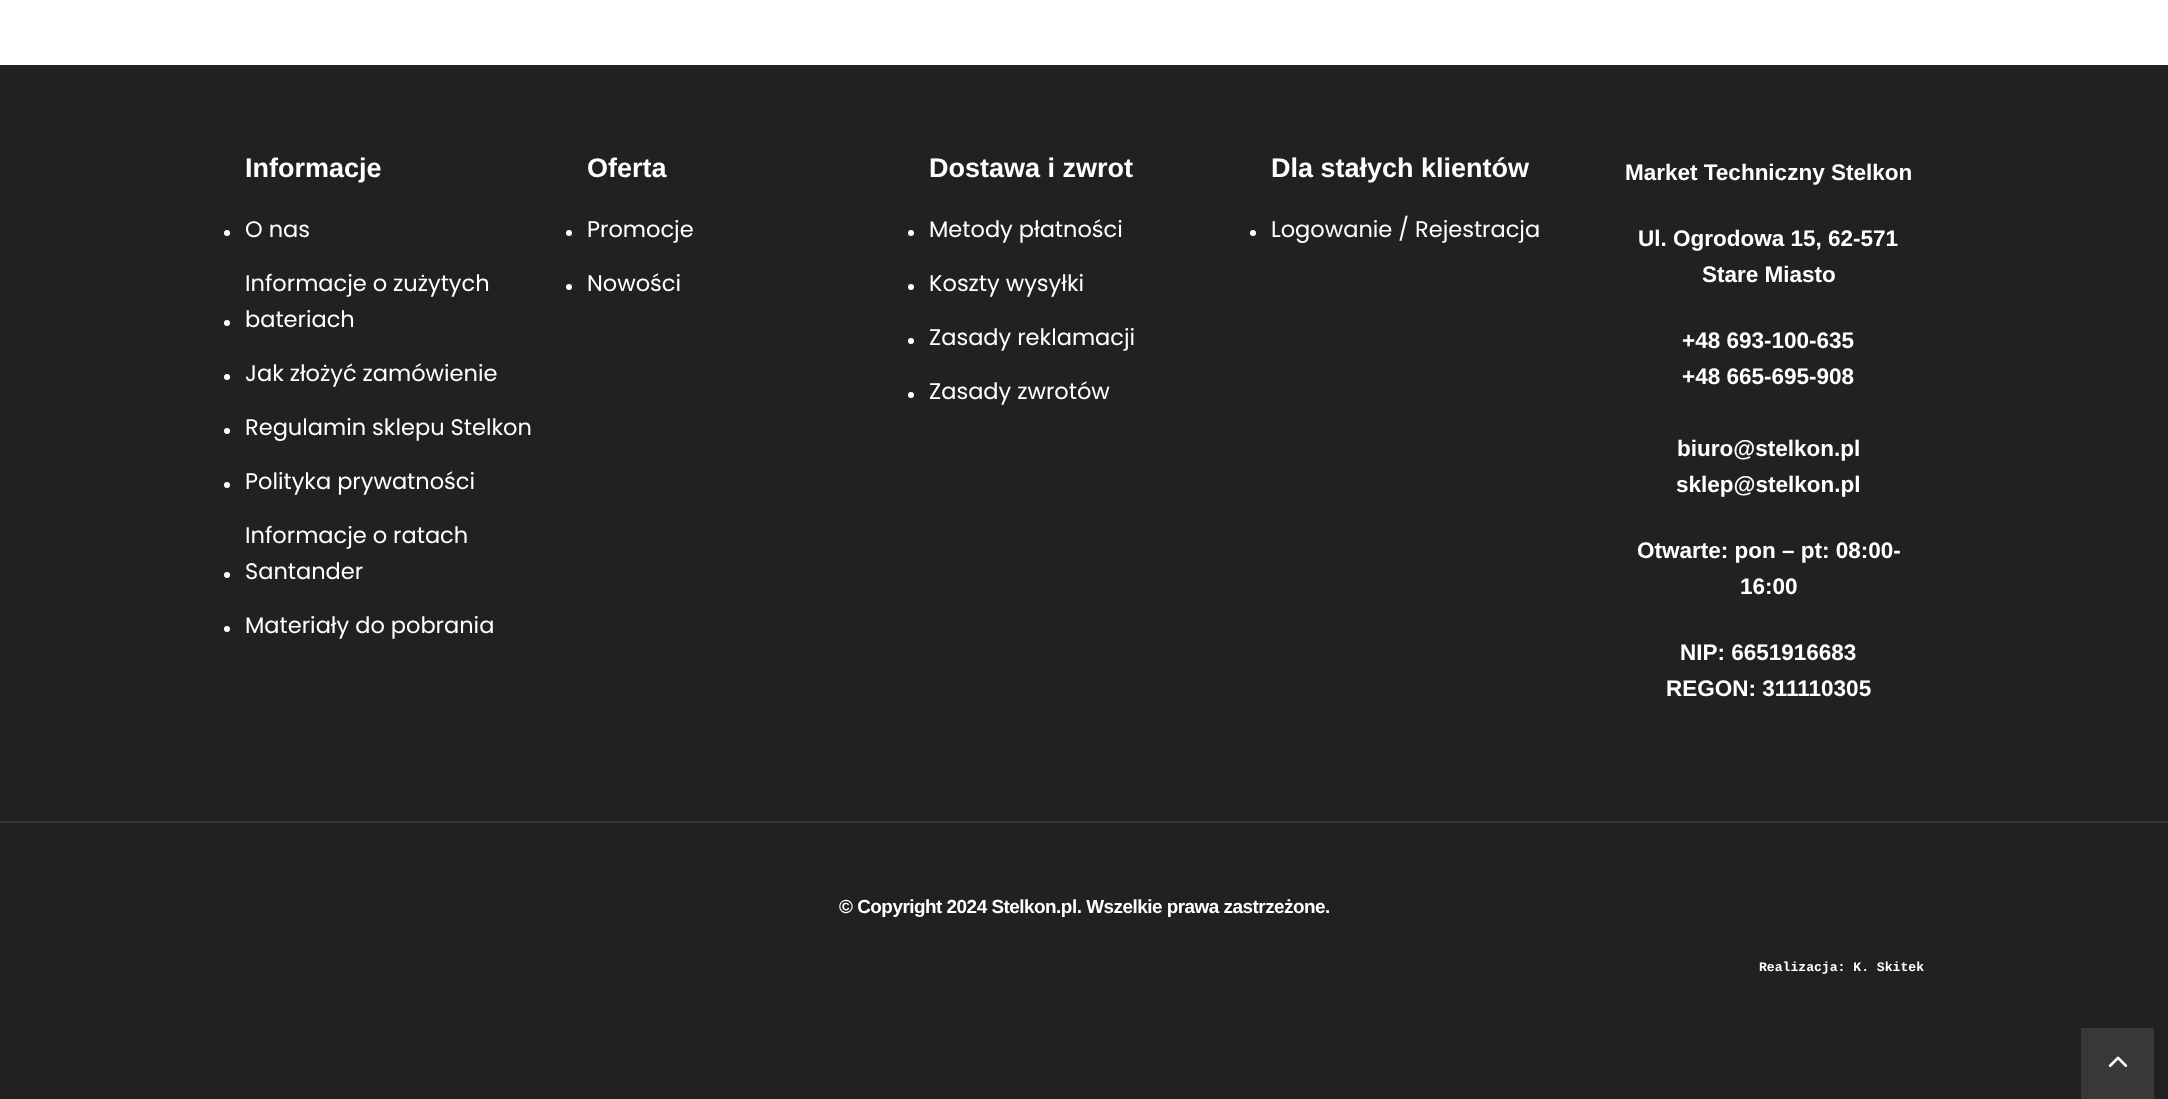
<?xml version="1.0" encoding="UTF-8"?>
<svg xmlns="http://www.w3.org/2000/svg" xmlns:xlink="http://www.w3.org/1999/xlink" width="2168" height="1099">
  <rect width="100%" height="100%" fill="#ffffff" />
  <rect y="65" width="2168" height="756" fill="#212121" />
  <circle cx="227" cy="233" r="3" fill="#ffffff" />
  <circle cx="227" cy="323" r="3" fill="#ffffff" />
  <circle cx="227" cy="377" r="3" fill="#ffffff" />
  <circle cx="227" cy="431" r="3" fill="#ffffff" />
  <circle cx="227" cy="485" r="3" fill="#ffffff" />
  <circle cx="227" cy="575" r="3" fill="#ffffff" />
  <circle cx="227" cy="629" r="3" fill="#ffffff" />
  <circle cx="569" cy="233" r="3" fill="#ffffff" />
  <circle cx="569" cy="287" r="3" fill="#ffffff" />
  <circle cx="911" cy="233" r="3" fill="#ffffff" />
  <circle cx="911" cy="287" r="3" fill="#ffffff" />
  <circle cx="911" cy="341" r="3" fill="#ffffff" />
  <circle cx="911" cy="395" r="3" fill="#ffffff" />
  <circle cx="1253" cy="233" r="3" fill="#ffffff" />
  <rect y="823" width="2168" height="276" fill="#212121" />
  <rect y="821" width="2168" height="2" fill="#373737" />
  <rect x="2081" y="1028" width="73" height="71" fill="#383838" />
  <image x="2108" y="1056" width="20" height="11" xlink:href="image1.png" />
  <text x="245" y="177" style="font-family: Liberation Sans; font-size: 27px; font-weight: bold; fill: #ffffff">Informacje</text>
  <text x="245" y="237" style="font-family: Poppins; font-size: 22.5px; fill: #ffffff">O nas</text>
  <text x="245" y="291" style="font-family: Poppins; font-size: 22.5px; fill: #ffffff">Informacje o zużytych</text>
  <text x="245" y="327" style="font-family: Poppins; font-size: 22.5px; fill: #ffffff">bateriach</text>
  <text x="245" y="381" style="font-family: Poppins; font-size: 22.5px; fill: #ffffff">Jak złożyć zamówienie</text>
  <text x="245" y="435" style="font-family: Poppins; font-size: 22.5px; fill: #ffffff">Regulamin sklepu Stelkon</text>
  <text x="245" y="489" style="font-family: Poppins; font-size: 22.5px; fill: #ffffff">Polityka prywatności</text>
  <text x="245" y="543" style="font-family: Poppins; font-size: 22.5px; fill: #ffffff">Informacje o ratach</text>
  <text x="245" y="579" style="font-family: Poppins; font-size: 22.5px; fill: #ffffff">Santander</text>
  <text x="245" y="633" style="font-family: Poppins; font-size: 22.5px; fill: #ffffff">Materiały do pobrania</text>
  <text x="587" y="177" style="font-family: Liberation Sans; font-size: 27px; font-weight: bold; fill: #ffffff">Oferta</text>
  <text x="587" y="237" style="font-family: Poppins; font-size: 22.5px; fill: #ffffff">Promocje</text>
  <text x="587" y="291" style="font-family: Poppins; font-size: 22.5px; fill: #ffffff">Nowości</text>
  <text x="929" y="177" style="font-family: Liberation Sans; font-size: 27px; font-weight: bold; fill: #ffffff">Dostawa i zwrot</text>
  <text x="929" y="237" style="font-family: Poppins; font-size: 22.5px; fill: #ffffff">Metody płatności</text>
  <text x="929" y="291" style="font-family: Poppins; font-size: 22.5px; fill: #ffffff">Koszty wysyłki</text>
  <text x="929" y="345" style="font-family: Poppins; font-size: 22.5px; fill: #ffffff">Zasady reklamacji</text>
  <text x="929" y="399" style="font-family: Poppins; font-size: 22.5px; fill: #ffffff">Zasady zwrotów</text>
  <text x="1271" y="177" style="font-family: Liberation Sans; font-size: 27px; font-weight: bold; fill: #ffffff">Dla stałych klientów</text>
  <text x="1271" y="237" style="font-family: Poppins; font-size: 22.5px; fill: #ffffff">Logowanie / Rejestracja</text>
  <text x="1625" y="180" style="font-family: Liberation Sans; font-size: 22.5px; font-weight: bold; fill: #ffffff">Market Techniczny Stelkon</text>
  <text x="1638" y="246" style="font-family: Liberation Sans; font-size: 22.5px; font-weight: bold; fill: #ffffff">Ul. Ogrodowa 15, 62-571</text>
  <text x="1702" y="282" style="font-family: Liberation Sans; font-size: 22.5px; font-weight: bold; fill: #ffffff">Stare Miasto</text>
  <text x="1682" y="348" style="font-family: Liberation Sans; font-size: 22.5px; font-weight: bold; fill: #ffffff">+48 693-100-635</text>
  <text x="1682" y="384" style="font-family: Liberation Sans; font-size: 22.5px; font-weight: bold; fill: #ffffff">+48 665-695-908</text>
  <text x="1677" y="456" style="font-family: Liberation Sans; font-size: 22.5px; font-weight: bold; fill: #ffffff">biuro@stelkon.pl</text>
  <text x="1676" y="492" style="font-family: Liberation Sans; font-size: 22.5px; font-weight: bold; fill: #ffffff">sklep@stelkon.pl</text>
  <text x="1637" y="558" style="font-family: Liberation Sans; font-size: 22.5px; font-weight: bold; fill: #ffffff">Otwarte: pon – pt: 08:00-</text>
  <text x="1740" y="594" style="font-family: Liberation Sans; font-size: 22.5px; font-weight: bold; fill: #ffffff">16:00</text>
  <text x="1680" y="660" style="font-family: Liberation Sans; font-size: 22.5px; font-weight: bold; fill: #ffffff">NIP: 6651916683</text>
  <text x="1666" y="696" style="font-family: Liberation Sans; font-size: 22.5px; font-weight: bold; fill: #ffffff">REGON: 311110305</text>
  <text x="839" y="913" style="font-family: Liberation Sans; font-size: 18.9px; font-weight: bold; letter-spacing: -0.5px; fill: #ffffff">© Copyright 2024 Stelkon.pl. Wszelkie prawa zastrzeżone.</text>
  <text x="1759" y="971" style="font-family: Liberation Mono; font-size: 13.1px; font-weight: bold; fill: #ffffff">Realizacja: K. Skitek</text>
</svg>
